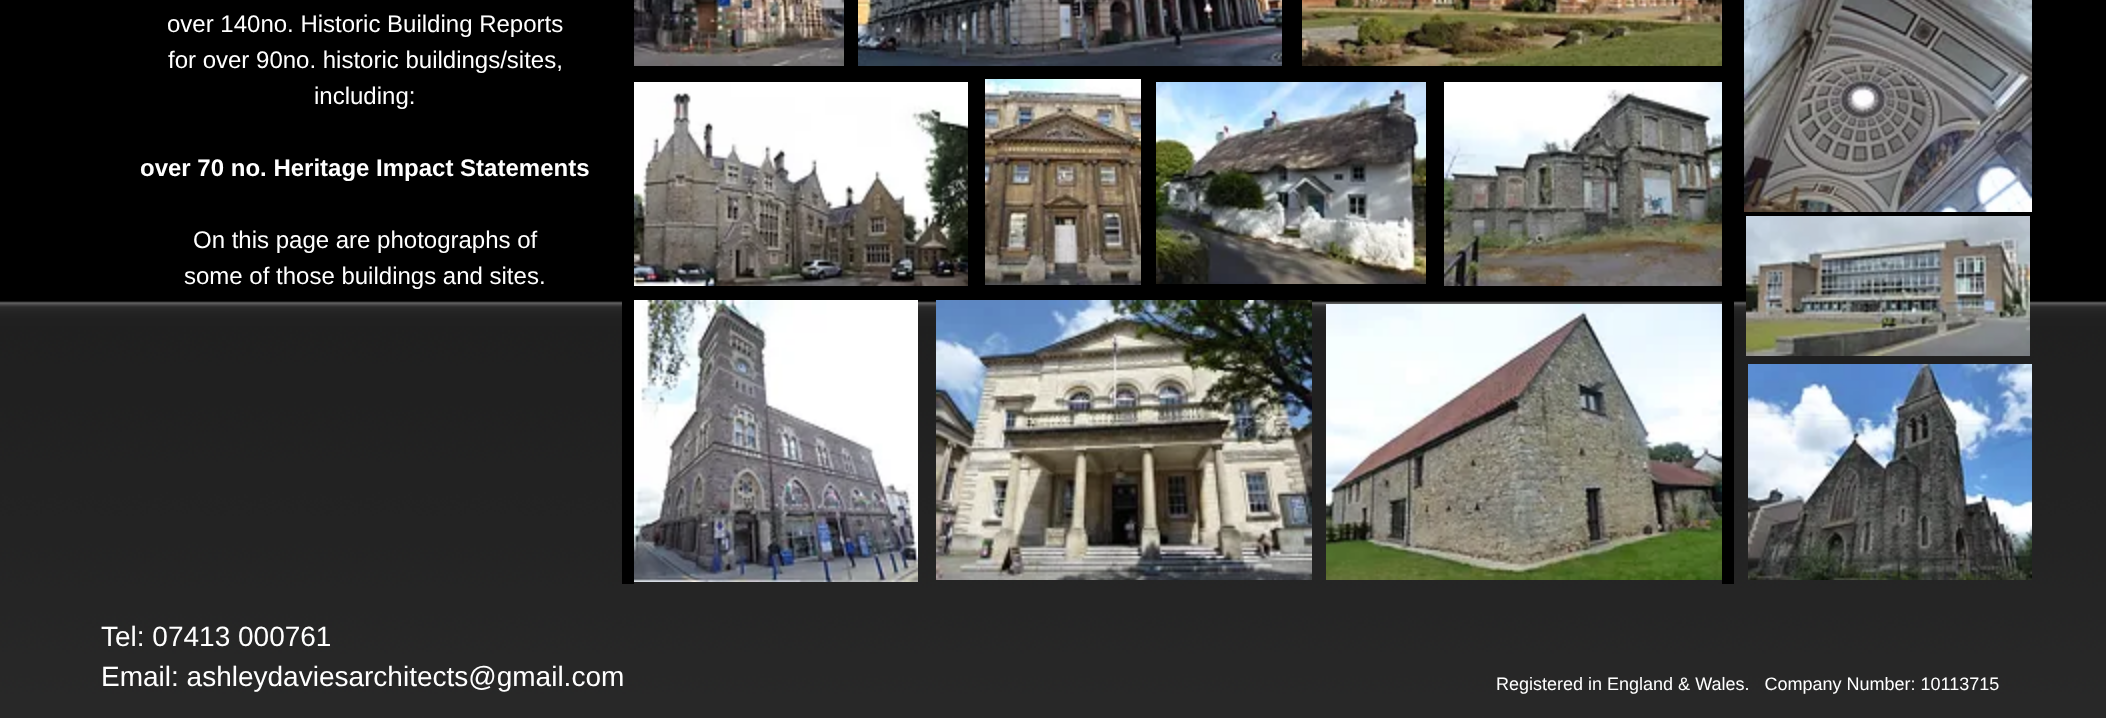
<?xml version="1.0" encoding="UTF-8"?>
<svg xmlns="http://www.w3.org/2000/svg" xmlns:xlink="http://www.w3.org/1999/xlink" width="2106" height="718">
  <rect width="100%" height="100%" fill="#000000" />
  <image x="634" y="0" width="210" height="66" xlink:href="image1.png" />
  <image x="858" y="0" width="424" height="66" xlink:href="image2.png" />
  <image x="1302" y="0" width="420" height="66" xlink:href="image3.png" />
  <image x="634" y="82" width="334" height="204" xlink:href="image4.png" />
  <image x="985" y="79" width="156" height="206" xlink:href="image5.png" />
  <image x="1156" y="82" width="270" height="202" xlink:href="image6.png" />
  <image x="1444" y="82" width="278" height="204" xlink:href="image7.png" />
  <image x="0" y="301" width="2106" height="417" xlink:href="image14.png" />
  <image x="634" y="300" width="284" height="282" xlink:href="image8.png" />
  <image x="936" y="300" width="376" height="280" xlink:href="image9.png" />
  <image x="1326" y="304" width="396" height="276" xlink:href="image10.png" />
  <image x="1748" y="364" width="284" height="216" xlink:href="image11.png" />
  <image x="1744" y="0" width="288" height="212" xlink:href="image12.png" />
  <image x="1746" y="216" width="284" height="140" xlink:href="image13.png" />
  <rect x="622" y="301" width="12" height="283" fill="#000000" />
  <rect x="1722" y="301" width="12" height="283" fill="#000000" />
  <text x="167" y="32" style="font-family: Liberation Sans; font-size: 24px; fill: #ffffff">over 140no. Historic Building Reports</text>
  <text x="168" y="68" style="font-family: Liberation Sans; font-size: 24px; fill: #ffffff">for over 90no. historic buildings/sites,</text>
  <text x="314" y="104" style="font-family: Liberation Sans; font-size: 24px; fill: #ffffff">including:</text>
  <text x="140" y="176" style="font-family: Liberation Sans; font-size: 24px; font-weight: bold; fill: #ffffff">over 70 no. Heritage Impact Statements</text>
  <text x="193" y="248" style="font-family: Liberation Sans; font-size: 24px; fill: #ffffff">On this page are photographs of</text>
  <text x="184" y="284" style="font-family: Liberation Sans; font-size: 24px; fill: #ffffff">some of those buildings and sites.</text>
  <text x="101" y="646" style="font-family: Liberation Sans; font-size: 28px; fill: #ffffff">Tel: 07413 000761</text>
  <text x="101" y="686" style="font-family: Liberation Sans; font-size: 28px; fill: #ffffff">Email: ashleydaviesarchitects@gmail.com</text>
  <text x="1496" y="690" style="font-family: Liberation Sans; font-size: 18px; fill: #ffffff" xml:space="preserve">Registered in England &amp; Wales.   Company Number: 10113715</text>
</svg>
